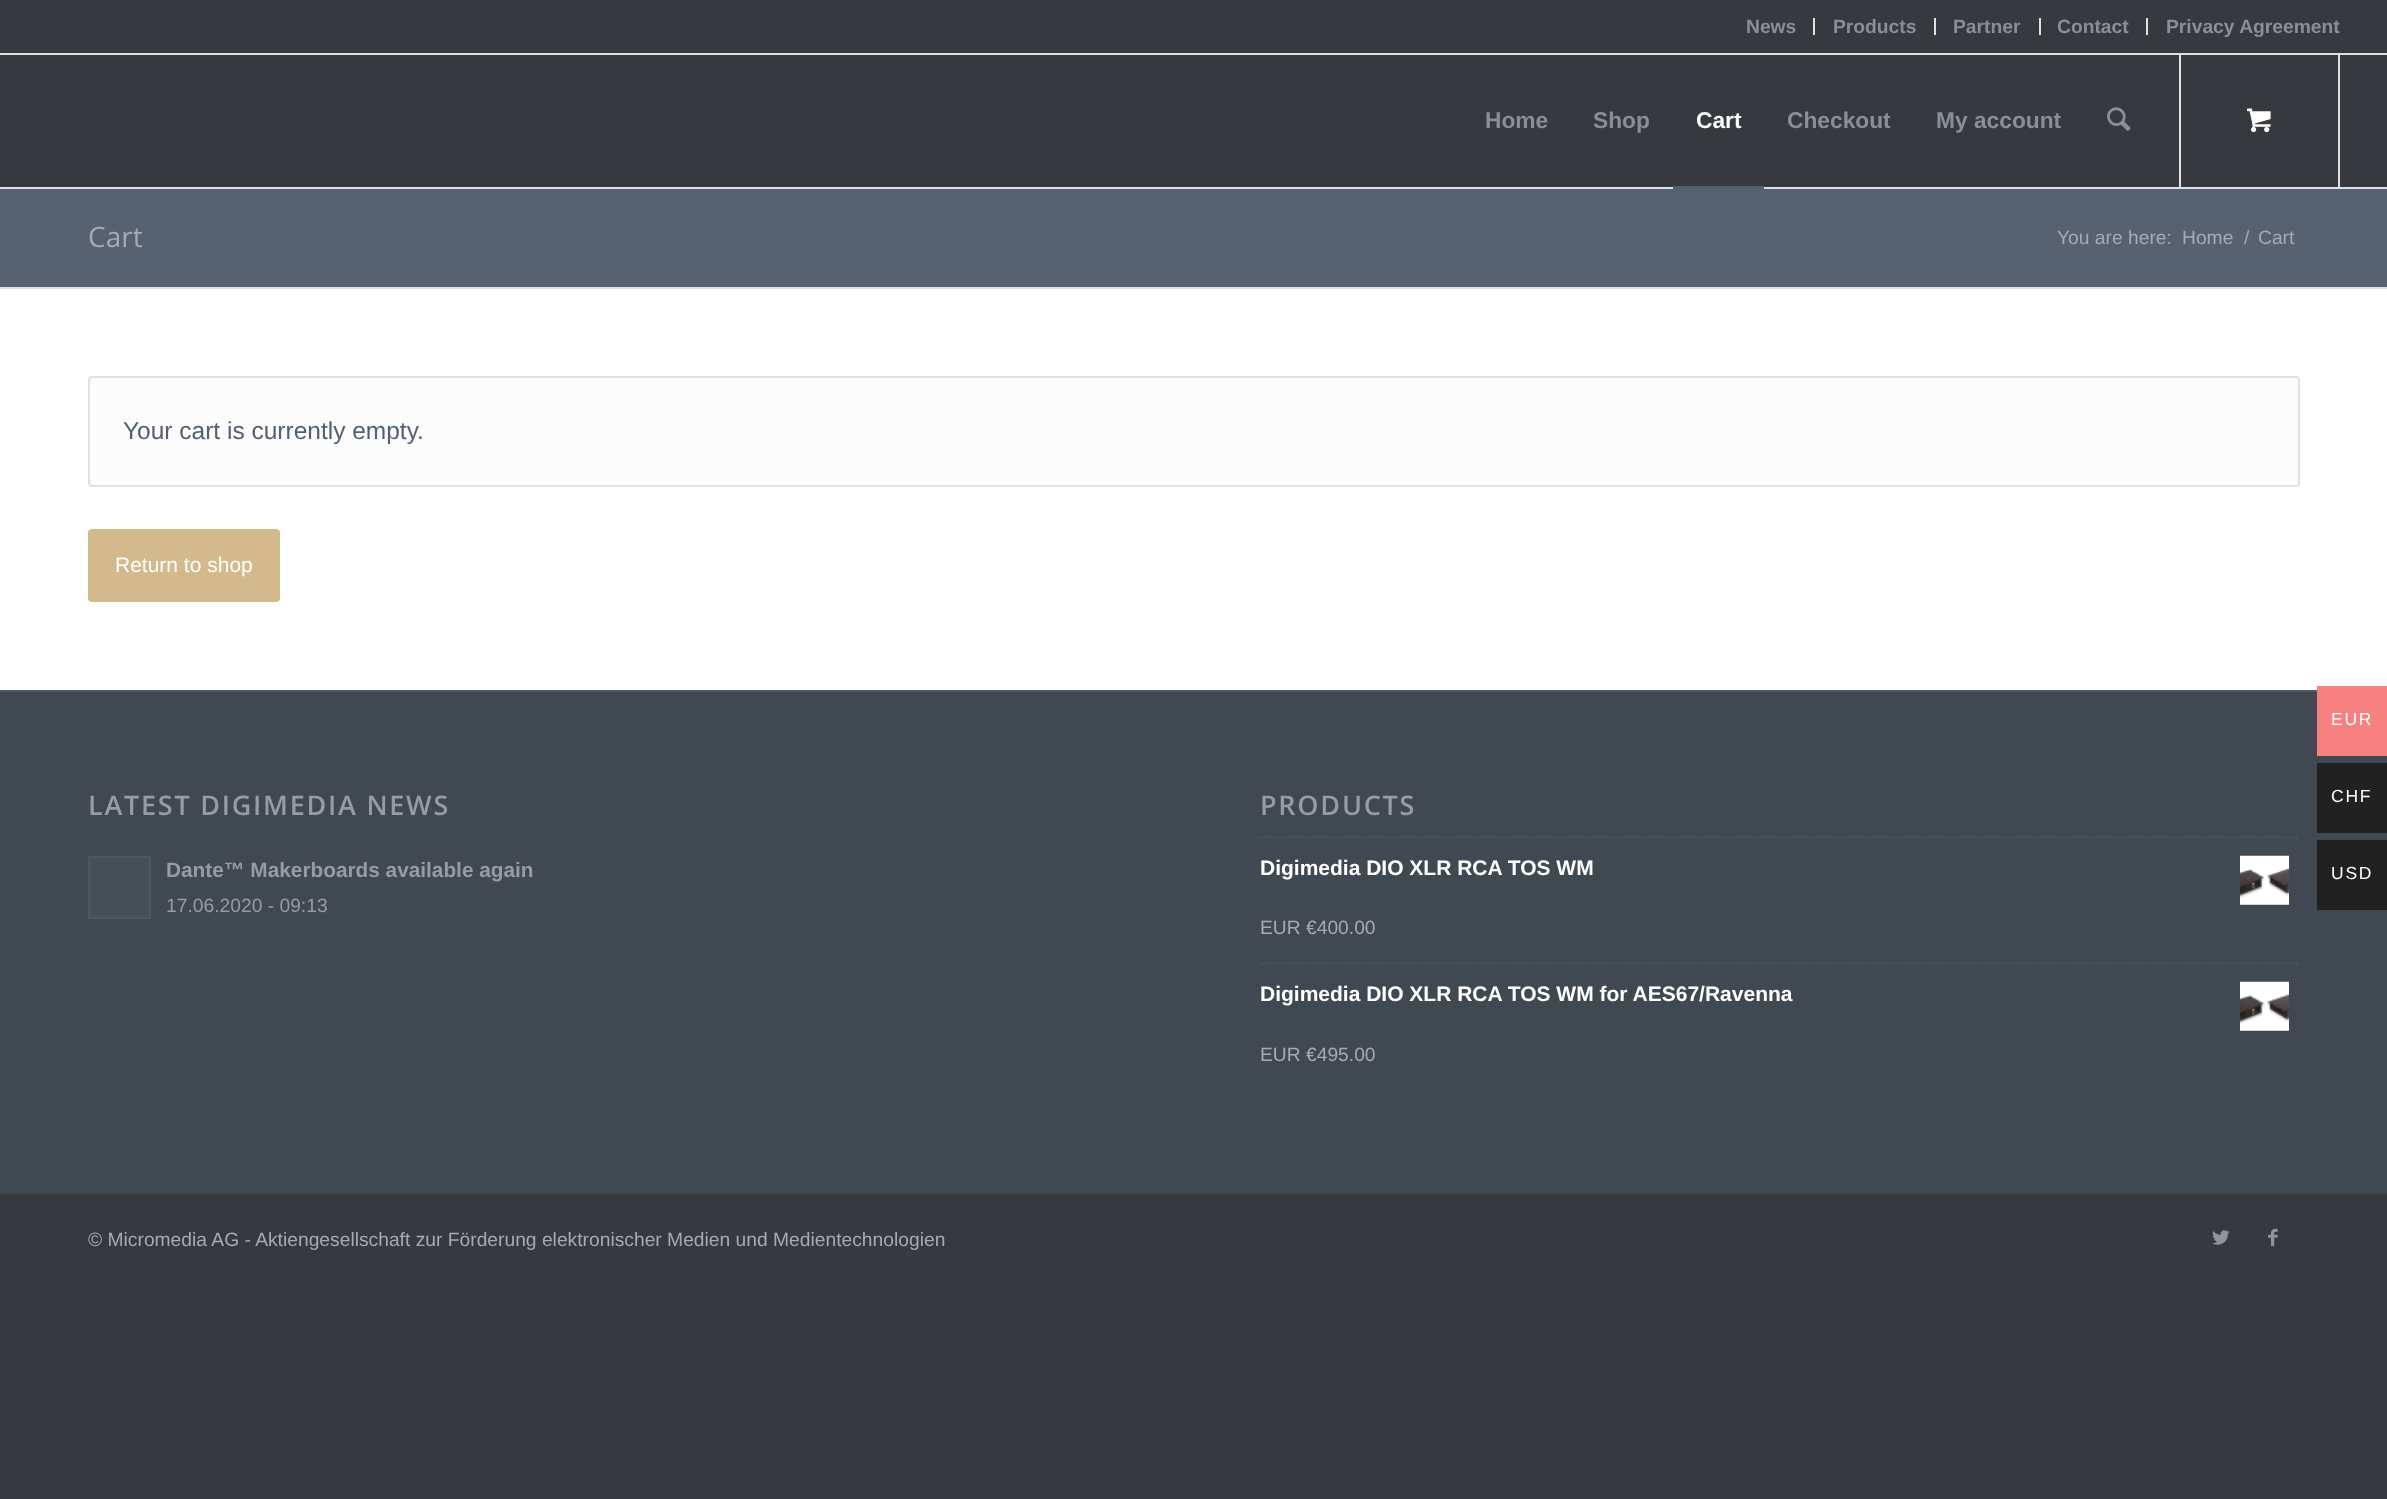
<?xml version="1.0" encoding="UTF-8"?>
<svg xmlns="http://www.w3.org/2000/svg" xmlns:xlink="http://www.w3.org/1999/xlink" width="2387" height="1499">
  <rect width="100%" height="100%" fill="#36393d" />
  <rect y="186" width="2387" height="1" fill="#383c40" />
  <rect x="2338" y="54" width="2" height="133" fill="#e1e1e1" />
  <rect x="2179" y="54" width="2" height="133" fill="#e1e1e1" />
  <rect y="53" width="2387" height="2" fill="#e1e1e1" />
  <rect x="1813" y="18" width="2" height="17" fill="#e1e1e1" />
  <rect x="1934" y="18" width="2" height="17" fill="#e1e1e1" />
  <rect x="2039" y="18" width="2" height="17" fill="#e1e1e1" />
  <rect x="2146" y="18" width="2" height="17" fill="#e1e1e1" />
  <rect y="187" width="2387" height="2" fill="#e1e1e1" />
  <rect x="1673" y="186" width="91" height="3" fill="#55606e" />
  <image x="2107" y="107" width="24" height="24" xlink:href="image1.png" />
  <image x="2247" y="108" width="24" height="25" xlink:href="image2.png" />
  <rect y="189" width="2387" height="98" fill="#576270" />
  <rect y="289" width="2387" height="401" fill="#ffffff" />
  <rect y="287" width="2387" height="2" fill="#e1e1e1" />
  <rect x="89" y="377" width="2210" height="109" rx="3" fill="#fcfcfc" stroke="#e1e1e1" stroke-width="2" />
  <rect x="88" y="529" width="192" height="73" rx="4" fill="#d4b98c" />
  <rect y="692" width="2387" height="500" fill="#404852" />
  <rect y="690" width="2317" height="2" fill="#4e5763" />
  <rect x="89" y="857" width="61" height="61" fill="#474f59" stroke="#4e5763" stroke-width="2" />
  <path d="M 1260 837.5 h 1039.5" fill="none" stroke="#4e5763" stroke-width="1.8" stroke-dasharray="1.75 1.75" />
  <image x="2240" y="855" width="49" height="50" xlink:href="image3.png" />
  <path d="M 1260 963.5 h 1039.5" fill="none" stroke="#4e5763" stroke-width="1.8" stroke-dasharray="1.75 1.75" />
  <image x="2240" y="981" width="49" height="50" xlink:href="image3.png" />
  <rect y="1192" width="2387" height="2" fill="#45494d" />
  <image x="2212" y="1230" width="18" height="15" xlink:href="image4.png" />
  <image x="2268" y="1228" width="10" height="19" xlink:href="image5.png" />
  <rect x="2317" y="686" width="70" height="70" fill="#f78080" />
  <rect x="2317" y="763" width="70" height="70" fill="#212121" />
  <rect x="2317" y="840" width="70" height="70" fill="#212121" />
  <text x="1746" y="33" style="font-family: Liberation Sans; font-size: 19.25px; font-weight: bold; fill: #889095">News</text>
  <text x="1833" y="33" style="font-family: Liberation Sans; font-size: 19.25px; font-weight: bold; fill: #889095">Products</text>
  <text x="1953" y="33" style="font-family: Liberation Sans; font-size: 19.25px; font-weight: bold; fill: #889095">Partner</text>
  <text x="2057" y="33" style="font-family: Liberation Sans; font-size: 19.25px; font-weight: bold; fill: #889095">Contact</text>
  <text x="2166" y="33" style="font-family: Liberation Sans; font-size: 19.25px; font-weight: bold; fill: #889095">Privacy Agreement</text>
  <text x="1485" y="128" style="font-family: Liberation Sans; font-size: 22.75px; font-weight: bold; fill: #889095">Home</text>
  <text x="1593" y="128" style="font-family: Liberation Sans; font-size: 22.75px; font-weight: bold; fill: #889095">Shop</text>
  <text x="1696" y="128" style="font-family: Liberation Sans; font-size: 22.75px; font-weight: bold; fill: #ffffff">Cart</text>
  <text x="1787" y="128" style="font-family: Liberation Sans; font-size: 22.75px; font-weight: bold; fill: #889095">Checkout</text>
  <text x="1936" y="128" style="font-family: Liberation Sans; font-size: 22.75px; font-weight: bold; fill: #889095">My account</text>
  <text x="88" y="247" style="font-family: Open Sans; font-size: 28px; fill: #a7abb1">Cart</text>
  <text x="2057" y="244" style="font-family: Liberation Sans; font-size: 19.25px; fill: #a7abb1">You are here:</text>
  <text x="2182" y="244" style="font-family: Liberation Sans; font-size: 19.25px; fill: #a7abb1">Home</text>
  <text x="2244" y="244" style="font-family: Liberation Sans; font-size: 19.25px; fill: #a7abb1">/</text>
  <text x="2258" y="244" style="font-family: Liberation Sans; font-size: 19.25px; fill: #a7abb1">Cart</text>
  <text x="123" y="439" style="font-family: Liberation Sans; font-size: 24.5px; fill: #55606e">Your cart is currently empty.</text>
  <text x="115" y="572" style="font-family: Liberation Sans; font-size: 21px; fill: #ffffff">Return to shop</text>
  <text x="88" y="815" style="font-family: Open Sans; font-size: 27px; font-weight: 600; letter-spacing: 1.75px; fill: #969ca4">LATEST DIGIMEDIA NEWS</text>
  <text x="166" y="877" style="font-family: Liberation Sans; font-size: 20.8px; font-weight: bold; fill: #969ca4">Dante™ Makerboards available again</text>
  <text x="166" y="912" style="font-family: Liberation Sans; font-size: 19.25px; fill: #969ca4">17.06.2020 - 09:13</text>
  <text x="1260" y="815" style="font-family: Open Sans; font-size: 27px; font-weight: 600; letter-spacing: 1.75px; fill: #969ca4">PRODUCTS</text>
  <text x="1260" y="875" style="font-family: Liberation Sans; font-size: 21px; font-weight: bold; fill: #ffffff">Digimedia DIO XLR RCA TOS WM</text>
  <text x="1260" y="934" style="font-family: Liberation Sans; font-size: 19.25px; fill: #a7abb1">EUR €400.00</text>
  <text x="1260" y="1001" style="font-family: Liberation Sans; font-size: 21px; font-weight: bold; fill: #ffffff">Digimedia DIO XLR RCA TOS WM for AES67/Ravenna</text>
  <text x="1260" y="1061" style="font-family: Liberation Sans; font-size: 19.25px; fill: #a7abb1">EUR €495.00</text>
  <text x="88" y="1246" style="font-family: Liberation Sans; font-size: 19.25px; fill: #a7abb1">© Micromedia AG - Aktiengesellschaft zur Förderung elektronischer Medien und Medientechnologien</text>
  <text x="2331" y="725" style="font-family: Liberation Sans; font-size: 17.5px; letter-spacing: 1.75px; fill: #ffffff">EUR</text>
  <text x="2331" y="802" style="font-family: Liberation Sans; font-size: 17.5px; letter-spacing: 1.75px; fill: #ffffff">CHF</text>
  <text x="2331" y="879" style="font-family: Liberation Sans; font-size: 17.5px; letter-spacing: 1.75px; fill: #ffffff">USD</text>
</svg>
